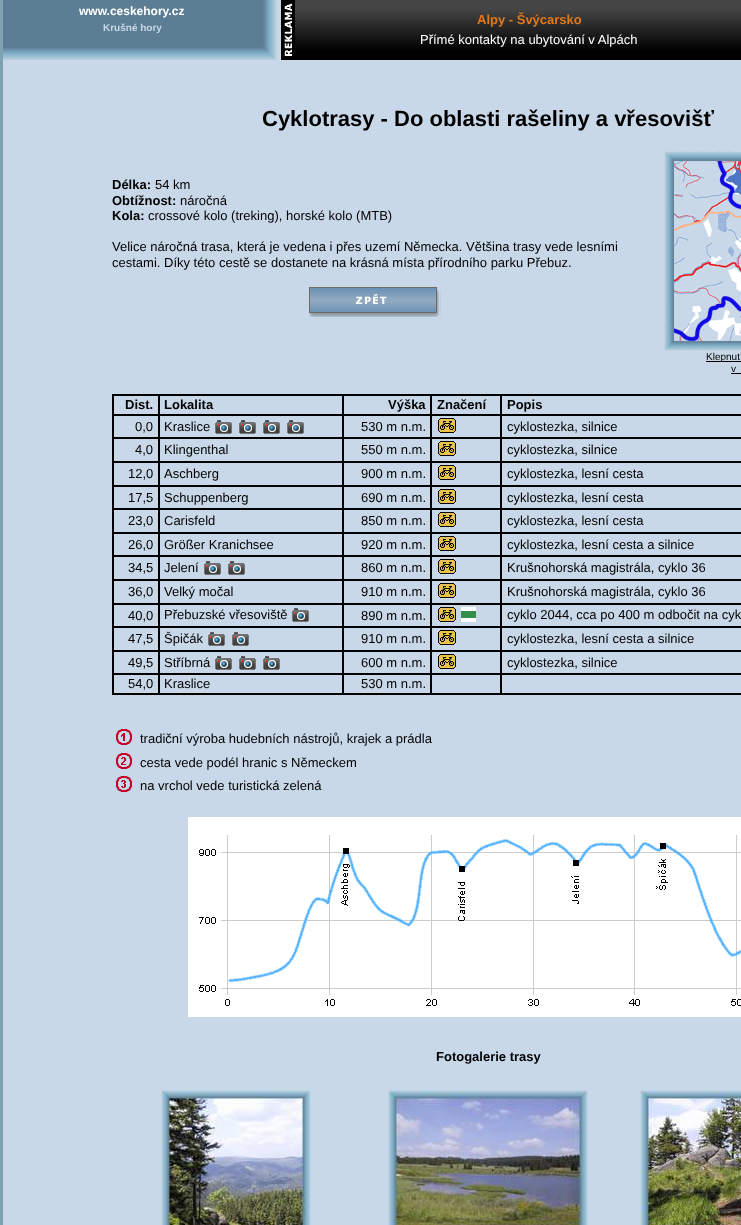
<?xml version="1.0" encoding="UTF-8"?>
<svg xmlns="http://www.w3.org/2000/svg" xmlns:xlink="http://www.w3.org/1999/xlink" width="741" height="1225">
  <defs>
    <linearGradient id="g1" gradientUnits="userSpaceOnUse" x1="529" y1="0" x2="529" y2="60"><stop offset="0.15" stop-color="#454545" /><stop offset="0.85" stop-color="#000000" /></linearGradient>
  </defs>
  <rect width="100%" height="100%" fill="#c8d8e8" />
  <rect width="3" height="1225" fill="#80a1b2" />
  <rect x="3" width="251" height="48" fill="#5b7e94" />
  <image x="254" y="0" width="23" height="38" xlink:href="image1.png" />
  <rect x="281" width="14" height="60" fill="#000000" />
  <image x="284" y="3" width="8" height="53" xlink:href="image2.png" />
  <rect x="295" width="446" height="60" fill="url(#g1)" />
  <image x="3" y="48" width="251" height="12" xlink:href="image3.png" />
  <image x="254" y="38" width="23" height="22" xlink:href="image4.png" />
  <image x="254" y="47" width="21" height="13" xlink:href="image5.png" />
  <image x="309" y="287" width="132" height="30" xlink:href="image6.png" />
  <image x="664" y="151" width="77" height="200" xlink:href="image7.png" />
  <rect x="706" y="361" width="35" height="1" fill="#000000" />
  <rect x="731" y="373" width="10" height="1" fill="#000000" />
  <rect x="112.5" y="394.5" width="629" height="300" fill="none" stroke="#000000" />
  <rect x="113.5" y="395.5" width="45" height="19" fill="none" stroke="#000000" />
  <rect x="159.5" y="395.5" width="183" height="19" fill="none" stroke="#000000" />
  <rect x="343.5" y="395.5" width="87" height="19" fill="none" stroke="#000000" />
  <rect x="431.5" y="395.5" width="69" height="19" fill="none" stroke="#000000" />
  <rect x="501.5" y="395.5" width="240" height="19" fill="none" stroke="#000000" />
  <rect x="113.5" y="415.5" width="45" height="22" fill="none" stroke="#000000" />
  <rect x="159.5" y="415.5" width="183" height="22" fill="none" stroke="#000000" />
  <image x="215" y="420" width="17" height="14" xlink:href="image8.png" />
  <image x="239" y="420" width="17" height="14" xlink:href="image8.png" />
  <image x="263" y="420" width="17" height="14" xlink:href="image8.png" />
  <image x="287" y="420" width="17" height="14" xlink:href="image8.png" />
  <rect x="343.5" y="415.5" width="87" height="22" fill="none" stroke="#000000" />
  <rect x="431.5" y="415.5" width="69" height="22" fill="none" stroke="#000000" />
  <image x="438" y="418" width="18" height="15" xlink:href="image9.png" />
  <rect x="501.5" y="415.5" width="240" height="22" fill="none" stroke="#000000" />
  <rect x="113.5" y="438.5" width="45" height="23" fill="none" stroke="#000000" />
  <rect x="159.5" y="438.5" width="183" height="23" fill="none" stroke="#000000" />
  <rect x="343.5" y="438.5" width="87" height="23" fill="none" stroke="#000000" />
  <rect x="431.5" y="438.5" width="69" height="23" fill="none" stroke="#000000" />
  <image x="438" y="441" width="18" height="15" xlink:href="image9.png" />
  <rect x="501.5" y="438.5" width="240" height="23" fill="none" stroke="#000000" />
  <rect x="113.5" y="462.5" width="45" height="23" fill="none" stroke="#000000" />
  <rect x="159.5" y="462.5" width="183" height="23" fill="none" stroke="#000000" />
  <rect x="343.5" y="462.5" width="87" height="23" fill="none" stroke="#000000" />
  <rect x="431.5" y="462.5" width="69" height="23" fill="none" stroke="#000000" />
  <image x="438" y="465" width="18" height="15" xlink:href="image9.png" />
  <rect x="501.5" y="462.5" width="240" height="23" fill="none" stroke="#000000" />
  <rect x="113.5" y="486.5" width="45" height="22" fill="none" stroke="#000000" />
  <rect x="159.5" y="486.5" width="183" height="22" fill="none" stroke="#000000" />
  <rect x="343.5" y="486.5" width="87" height="22" fill="none" stroke="#000000" />
  <rect x="431.5" y="486.5" width="69" height="22" fill="none" stroke="#000000" />
  <image x="438" y="489" width="18" height="15" xlink:href="image9.png" />
  <rect x="501.5" y="486.5" width="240" height="22" fill="none" stroke="#000000" />
  <rect x="113.5" y="509.5" width="45" height="23" fill="none" stroke="#000000" />
  <rect x="159.5" y="509.5" width="183" height="23" fill="none" stroke="#000000" />
  <rect x="343.5" y="509.5" width="87" height="23" fill="none" stroke="#000000" />
  <rect x="431.5" y="509.5" width="69" height="23" fill="none" stroke="#000000" />
  <image x="438" y="512" width="18" height="15" xlink:href="image9.png" />
  <rect x="501.5" y="509.5" width="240" height="23" fill="none" stroke="#000000" />
  <rect x="113.5" y="533.5" width="45" height="22" fill="none" stroke="#000000" />
  <rect x="159.5" y="533.5" width="183" height="22" fill="none" stroke="#000000" />
  <rect x="343.5" y="533.5" width="87" height="22" fill="none" stroke="#000000" />
  <rect x="431.5" y="533.5" width="69" height="22" fill="none" stroke="#000000" />
  <image x="438" y="536" width="18" height="15" xlink:href="image9.png" />
  <rect x="501.5" y="533.5" width="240" height="22" fill="none" stroke="#000000" />
  <rect x="113.5" y="556.5" width="45" height="23" fill="none" stroke="#000000" />
  <rect x="159.5" y="556.5" width="183" height="23" fill="none" stroke="#000000" />
  <image x="204" y="561" width="17" height="14" xlink:href="image8.png" />
  <image x="228" y="561" width="17" height="14" xlink:href="image8.png" />
  <rect x="343.5" y="556.5" width="87" height="23" fill="none" stroke="#000000" />
  <rect x="431.5" y="556.5" width="69" height="23" fill="none" stroke="#000000" />
  <image x="438" y="559" width="18" height="15" xlink:href="image9.png" />
  <rect x="501.5" y="556.5" width="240" height="23" fill="none" stroke="#000000" />
  <rect x="113.5" y="580.5" width="45" height="23" fill="none" stroke="#000000" />
  <rect x="159.5" y="580.5" width="183" height="23" fill="none" stroke="#000000" />
  <rect x="343.5" y="580.5" width="87" height="23" fill="none" stroke="#000000" />
  <rect x="431.5" y="580.5" width="69" height="23" fill="none" stroke="#000000" />
  <image x="438" y="583" width="18" height="15" xlink:href="image9.png" />
  <rect x="501.5" y="580.5" width="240" height="23" fill="none" stroke="#000000" />
  <rect x="113.5" y="604.5" width="45" height="22" fill="none" stroke="#000000" />
  <rect x="159.5" y="604.5" width="183" height="22" fill="none" stroke="#000000" />
  <image x="292" y="608" width="17" height="14" xlink:href="image8.png" />
  <rect x="343.5" y="604.5" width="87" height="22" fill="none" stroke="#000000" />
  <rect x="431.5" y="604.5" width="69" height="22" fill="none" stroke="#000000" />
  <image x="438" y="607" width="18" height="15" xlink:href="image9.png" />
  <image x="461" y="607" width="15" height="15" xlink:href="image10.png" />
  <rect x="501.5" y="604.5" width="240" height="22" fill="none" stroke="#000000" />
  <rect x="113.5" y="627.5" width="45" height="23" fill="none" stroke="#000000" />
  <rect x="159.5" y="627.5" width="183" height="23" fill="none" stroke="#000000" />
  <image x="208" y="632" width="17" height="14" xlink:href="image8.png" />
  <image x="232" y="632" width="17" height="14" xlink:href="image8.png" />
  <rect x="343.5" y="627.5" width="87" height="23" fill="none" stroke="#000000" />
  <rect x="431.5" y="627.5" width="69" height="23" fill="none" stroke="#000000" />
  <image x="438" y="630" width="18" height="15" xlink:href="image9.png" />
  <rect x="501.5" y="627.5" width="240" height="23" fill="none" stroke="#000000" />
  <rect x="113.5" y="651.5" width="45" height="22" fill="none" stroke="#000000" />
  <rect x="159.5" y="651.5" width="183" height="22" fill="none" stroke="#000000" />
  <image x="215" y="656" width="17" height="14" xlink:href="image8.png" />
  <image x="239" y="656" width="17" height="14" xlink:href="image8.png" />
  <image x="263" y="656" width="17" height="14" xlink:href="image8.png" />
  <rect x="343.5" y="651.5" width="87" height="22" fill="none" stroke="#000000" />
  <rect x="431.5" y="651.5" width="69" height="22" fill="none" stroke="#000000" />
  <image x="438" y="654" width="18" height="15" xlink:href="image9.png" />
  <rect x="501.5" y="651.5" width="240" height="22" fill="none" stroke="#000000" />
  <rect x="113.5" y="674.5" width="45" height="19" fill="none" stroke="#000000" />
  <rect x="159.5" y="674.5" width="183" height="19" fill="none" stroke="#000000" />
  <rect x="343.5" y="674.5" width="87" height="19" fill="none" stroke="#000000" />
  <rect x="431.5" y="674.5" width="69" height="19" fill="none" stroke="#000000" />
  <rect x="501.5" y="674.5" width="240" height="19" fill="none" stroke="#000000" />
  <image x="116" y="729" width="16" height="16" xlink:href="image11.png" />
  <image x="116" y="753" width="16" height="16" xlink:href="image12.png" />
  <image x="116" y="776" width="16" height="16" xlink:href="image13.png" />
  <image x="188" y="817" width="553" height="200" xlink:href="image14.png" />
  <image x="161" y="1090" width="150" height="135" xlink:href="image15.png" />
  <image x="388" y="1090" width="200" height="135" xlink:href="image16.png" />
  <image x="640" y="1090" width="101" height="135" xlink:href="image17.png" />
  <text x="79" y="15" style="font-family: Liberation Sans; font-size: 12px; font-weight: bold; fill: #ffffff">www.ceskehory.cz</text>
  <text x="103" y="31" style="font-family: Liberation Sans; font-size: 10px; font-weight: bold; fill: #c8d8e8">Krušné hory</text>
  <text x="477" y="24" style="font-family: Liberation Sans; font-size: 13px; font-weight: bold; fill: #e37919">Alpy - Švýcarsko</text>
  <text x="420" y="44" style="font-family: Liberation Sans; font-size: 13px; fill: #ffffff">Přímé kontakty na ubytování v Alpách</text>
  <text x="262" y="126" style="font-family: Liberation Sans; font-size: 22px; font-weight: bold; fill: #000000">Cyklotrasy - Do oblasti rašeliny a vřesovišť</text>
  <text x="112" y="189" style="font-family: Liberation Sans; font-size: 13px; font-weight: bold; fill: #000000">Délka:</text>
  <text x="155" y="189" style="font-family: Liberation Sans; font-size: 13px; fill: #000000">54 km</text>
  <text x="112" y="205" style="font-family: Liberation Sans; font-size: 13px; font-weight: bold; fill: #000000">Obtížnost:</text>
  <text x="180" y="205" style="font-family: Liberation Sans; font-size: 13px; fill: #000000">náročná</text>
  <text x="112" y="220" style="font-family: Liberation Sans; font-size: 13px; font-weight: bold; fill: #000000">Kola:</text>
  <text x="148" y="220" style="font-family: Liberation Sans; font-size: 13px; fill: #000000">crossové kolo (treking), horské kolo (MTB)</text>
  <text x="112" y="251" style="font-family: Liberation Sans; font-size: 13px; fill: #000000">Velice náročná trasa, která je vedena i přes uzemí Německa. Většina trasy vede lesními</text>
  <text x="112" y="267" style="font-family: Liberation Sans; font-size: 13px; fill: #000000">cestami. Díky této cestě se dostanete na krásná místa přírodního parku Přebuz.</text>
  <text x="706" y="360" style="font-family: Liberation Sans; font-size: 10px; fill: #000000">Klepnutí</text>
  <text x="731" y="372" style="font-family: Liberation Sans; font-size: 10px; fill: #000000">v</text>
  <text x="125" y="409" style="font-family: Liberation Sans; font-size: 13px; font-weight: bold; fill: #000000">Dist.</text>
  <text x="164" y="409" style="font-family: Liberation Sans; font-size: 13px; font-weight: bold; fill: #000000">Lokalita</text>
  <text x="388" y="409" style="font-family: Liberation Sans; font-size: 13px; font-weight: bold; fill: #000000">Výška</text>
  <text x="437" y="409" style="font-family: Liberation Sans; font-size: 13px; font-weight: bold; fill: #000000">Značení</text>
  <text x="507" y="409" style="font-family: Liberation Sans; font-size: 13px; font-weight: bold; fill: #000000">Popis</text>
  <text x="135" y="431" style="font-family: Liberation Sans; font-size: 13px; fill: #000000">0,0</text>
  <text x="164" y="431" style="font-family: Liberation Sans; font-size: 13px; fill: #000000">Kraslice</text>
  <text x="361" y="431" style="font-family: Liberation Sans; font-size: 13px; fill: #000000">530 m n.m.</text>
  <text x="507" y="431" style="font-family: Liberation Sans; font-size: 13px; fill: #000000">cyklostezka, silnice</text>
  <text x="135" y="454" style="font-family: Liberation Sans; font-size: 13px; fill: #000000">4,0</text>
  <text x="164" y="454" style="font-family: Liberation Sans; font-size: 13px; fill: #000000">Klingenthal</text>
  <text x="361" y="454" style="font-family: Liberation Sans; font-size: 13px; fill: #000000">550 m n.m.</text>
  <text x="507" y="454" style="font-family: Liberation Sans; font-size: 13px; fill: #000000">cyklostezka, silnice</text>
  <text x="128" y="478" style="font-family: Liberation Sans; font-size: 13px; fill: #000000">12,0</text>
  <text x="164" y="478" style="font-family: Liberation Sans; font-size: 13px; fill: #000000">Aschberg</text>
  <text x="361" y="478" style="font-family: Liberation Sans; font-size: 13px; fill: #000000">900 m n.m.</text>
  <text x="507" y="478" style="font-family: Liberation Sans; font-size: 13px; fill: #000000">cyklostezka, lesní cesta</text>
  <text x="128" y="502" style="font-family: Liberation Sans; font-size: 13px; fill: #000000">17,5</text>
  <text x="164" y="502" style="font-family: Liberation Sans; font-size: 13px; fill: #000000">Schuppenberg</text>
  <text x="361" y="502" style="font-family: Liberation Sans; font-size: 13px; fill: #000000">690 m n.m.</text>
  <text x="507" y="502" style="font-family: Liberation Sans; font-size: 13px; fill: #000000">cyklostezka, lesní cesta</text>
  <text x="128" y="525" style="font-family: Liberation Sans; font-size: 13px; fill: #000000">23,0</text>
  <text x="164" y="525" style="font-family: Liberation Sans; font-size: 13px; fill: #000000">Carisfeld</text>
  <text x="361" y="525" style="font-family: Liberation Sans; font-size: 13px; fill: #000000">850 m n.m.</text>
  <text x="507" y="525" style="font-family: Liberation Sans; font-size: 13px; fill: #000000">cyklostezka, lesní cesta</text>
  <text x="128" y="549" style="font-family: Liberation Sans; font-size: 13px; fill: #000000">26,0</text>
  <text x="164" y="549" style="font-family: Liberation Sans; font-size: 13px; fill: #000000">Größer Kranichsee</text>
  <text x="361" y="549" style="font-family: Liberation Sans; font-size: 13px; fill: #000000">920 m n.m.</text>
  <text x="507" y="549" style="font-family: Liberation Sans; font-size: 13px; fill: #000000">cyklostezka, lesní cesta a silnice</text>
  <text x="128" y="572" style="font-family: Liberation Sans; font-size: 13px; fill: #000000">34,5</text>
  <text x="164" y="572" style="font-family: Liberation Sans; font-size: 13px; fill: #000000">Jelení</text>
  <text x="361" y="572" style="font-family: Liberation Sans; font-size: 13px; fill: #000000">860 m n.m.</text>
  <text x="507" y="572" style="font-family: Liberation Sans; font-size: 13px; fill: #000000">Krušnohorská magistrála, cyklo 36</text>
  <text x="128" y="596" style="font-family: Liberation Sans; font-size: 13px; fill: #000000">36,0</text>
  <text x="164" y="596" style="font-family: Liberation Sans; font-size: 13px; fill: #000000">Velký močal</text>
  <text x="361" y="596" style="font-family: Liberation Sans; font-size: 13px; fill: #000000">910 m n.m.</text>
  <text x="507" y="596" style="font-family: Liberation Sans; font-size: 13px; fill: #000000">Krušnohorská magistrála, cyklo 36</text>
  <text x="128" y="620" style="font-family: Liberation Sans; font-size: 13px; fill: #000000">40,0</text>
  <text x="164" y="619" style="font-family: Liberation Sans; font-size: 13px; fill: #000000">Přebuzské vřesoviště</text>
  <text x="361" y="620" style="font-family: Liberation Sans; font-size: 13px; fill: #000000">890 m n.m.</text>
  <text x="507" y="619" style="font-family: Liberation Sans; font-size: 13px; fill: #000000">cyklo 2044, cca po 400 m odbočit na cyk</text>
  <text x="128" y="643" style="font-family: Liberation Sans; font-size: 13px; fill: #000000">47,5</text>
  <text x="164" y="643" style="font-family: Liberation Sans; font-size: 13px; fill: #000000">Špičák</text>
  <text x="361" y="643" style="font-family: Liberation Sans; font-size: 13px; fill: #000000">910 m n.m.</text>
  <text x="507" y="643" style="font-family: Liberation Sans; font-size: 13px; fill: #000000">cyklostezka, lesní cesta a silnice</text>
  <text x="128" y="667" style="font-family: Liberation Sans; font-size: 13px; fill: #000000">49,5</text>
  <text x="164" y="667" style="font-family: Liberation Sans; font-size: 13px; fill: #000000">Stříbrná</text>
  <text x="361" y="667" style="font-family: Liberation Sans; font-size: 13px; fill: #000000">600 m n.m.</text>
  <text x="507" y="667" style="font-family: Liberation Sans; font-size: 13px; fill: #000000">cyklostezka, silnice</text>
  <text x="128" y="688" style="font-family: Liberation Sans; font-size: 13px; fill: #000000">54,0</text>
  <text x="164" y="688" style="font-family: Liberation Sans; font-size: 13px; fill: #000000">Kraslice</text>
  <text x="361" y="688" style="font-family: Liberation Sans; font-size: 13px; fill: #000000">530 m n.m.</text>
  <text x="140" y="743" style="font-family: Liberation Sans; font-size: 13px; fill: #000000">tradiční výroba hudebních nástrojů, krajek a prádla</text>
  <text x="140" y="767" style="font-family: Liberation Sans; font-size: 13px; fill: #000000">cesta vede podél hranic s Německem</text>
  <text x="140" y="790" style="font-family: Liberation Sans; font-size: 13px; fill: #000000">na vrchol vede turistická zelená</text>
  <text x="436" y="1061" style="font-family: Liberation Sans; font-size: 13px; font-weight: bold; fill: #000000">Fotogalerie trasy</text>
</svg>
